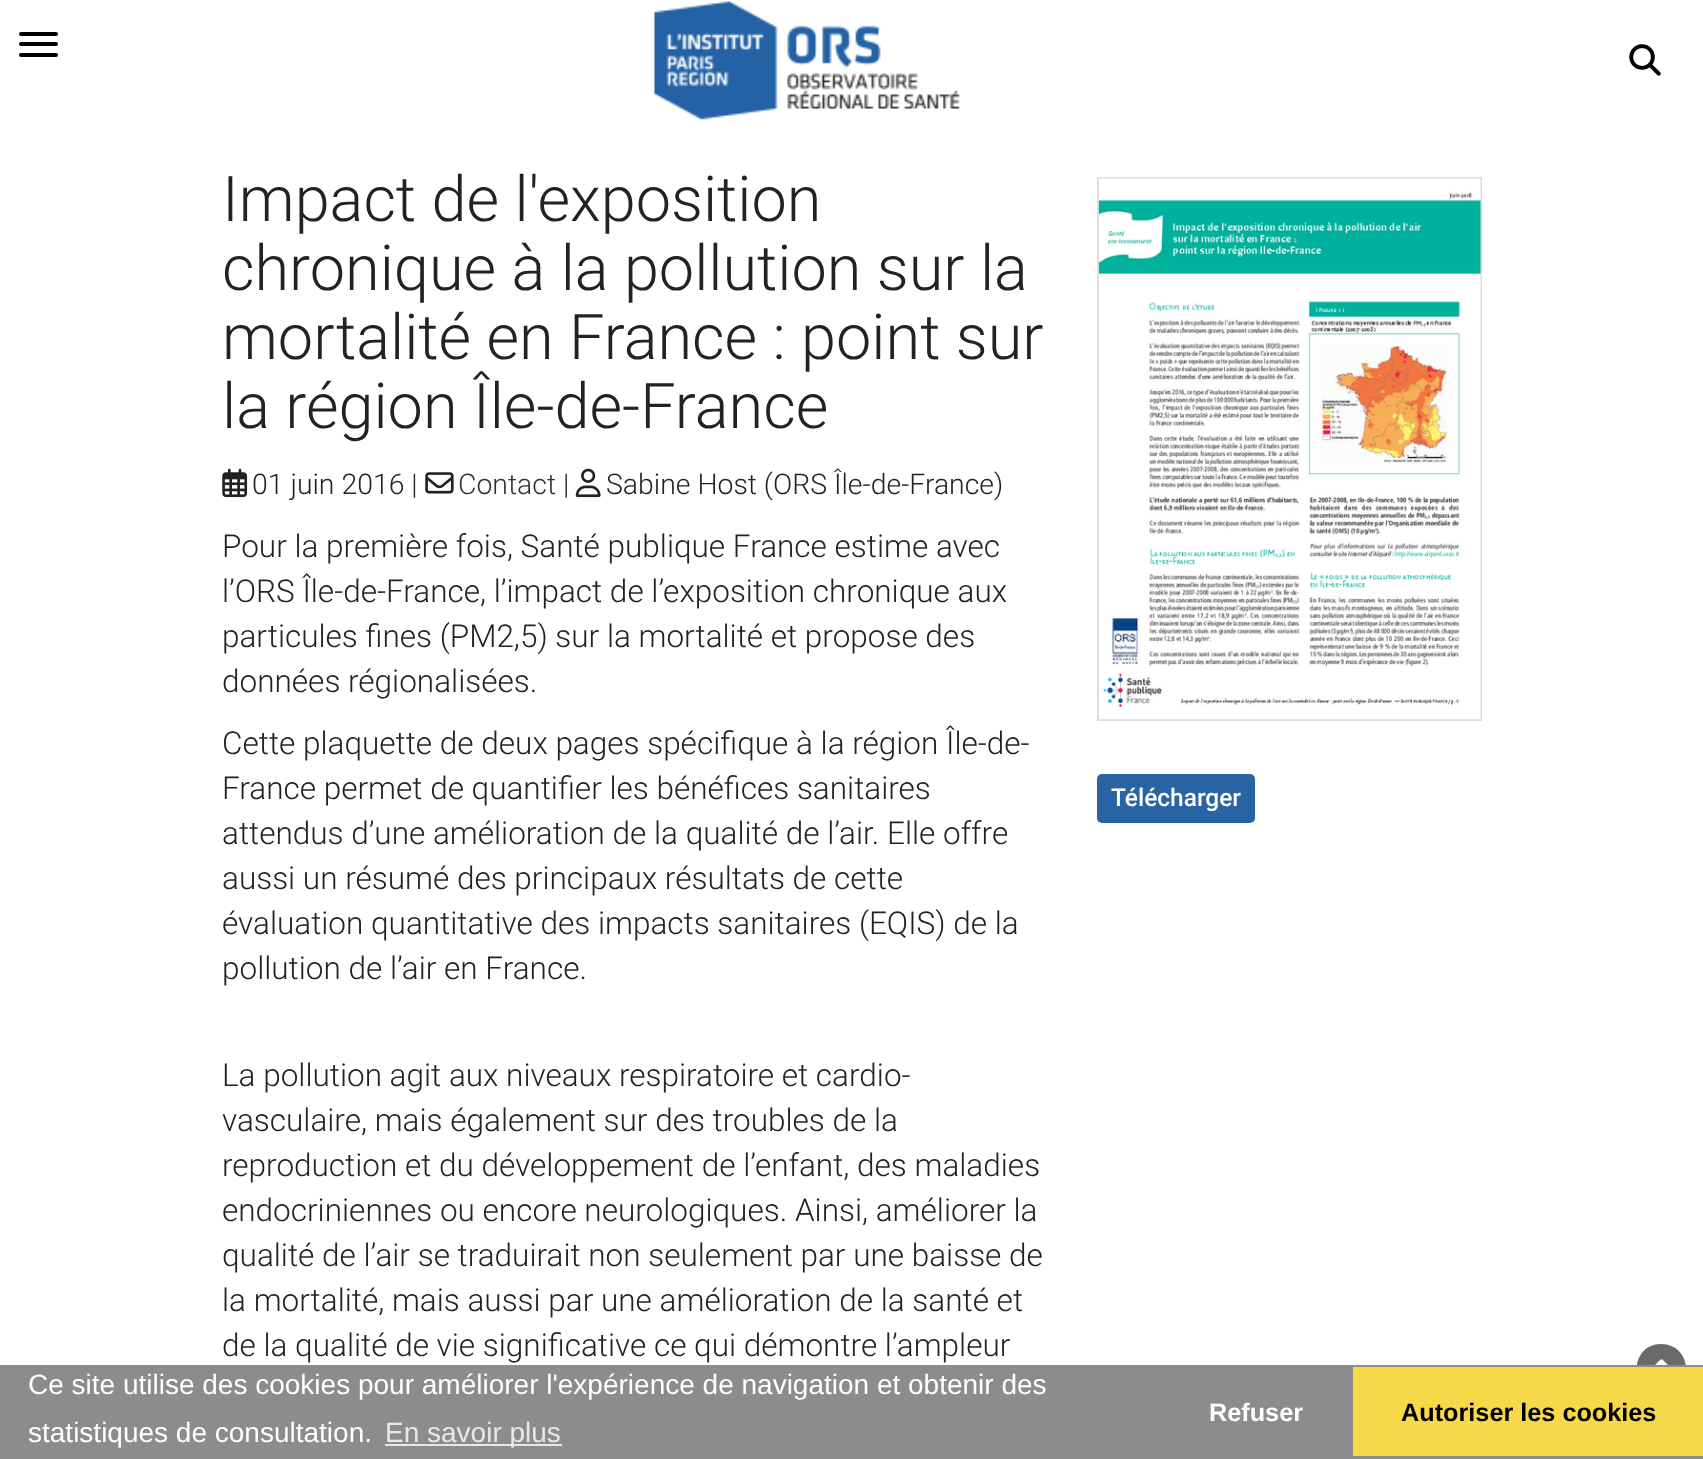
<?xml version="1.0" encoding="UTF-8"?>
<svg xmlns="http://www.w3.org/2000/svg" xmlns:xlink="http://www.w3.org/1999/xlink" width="1703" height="1459">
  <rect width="100%" height="100%" fill="#ffffff" />
  <rect x="19" y="32" width="39" height="4" rx="2" fill="#000000" />
  <rect x="19" y="42" width="39" height="4" rx="2" fill="#000000" />
  <rect x="19" y="53" width="39" height="4" rx="2" fill="#000000" />
  <image x="654" y="1" width="306" height="119" xlink:href="image1.png" />
  <image x="1629" y="44" width="32" height="32" xlink:href="image2.png" />
  <image x="222" y="468" width="26" height="30" xlink:href="image3.png" />
  <image x="425" y="472" width="29" height="22" xlink:href="image4.png" />
  <image x="575" y="468" width="26" height="30" xlink:href="image5.png" />
  <rect x="1098" y="178" width="383" height="542" fill="none" stroke="#dddddd" stroke-width="2" />
  <image x="1099" y="178" width="382" height="542" xlink:href="image6.png" />
  <rect x="1097" y="774" width="158" height="49" rx="5" fill="#2864a3" />
  <path d="M 1661 1394 c 34 0 33 -50 0 -50 c -32 0 -33 50 0 50 z m 12 -24 c 2 2 0 5 -2 4 l -10 -9 l -8 9 c -1 1 -2 1 -3 0 c -1 -1 -1 -3 0 -4 l 10 -10 c 1 -1 2 -1 3 0 z" fill="#6a6a6a" />
  <rect y="1365" width="1703" height="94" fill="#8c8c8c" />
  <rect x="385" y="1444" width="177" height="2" fill="#e8e8e8" />
  <rect x="1353" y="1367" width="350" height="89" fill="#f5d948" />
  <text x="222" y="221" style="font-family: Roboto; font-size: 63px; font-weight: 300; fill: #222222">Impact de l'exposition</text>
  <text x="222" y="290" style="font-family: Roboto; font-size: 63px; font-weight: 300; fill: #222222">chronique à la pollution sur la</text>
  <text x="222" y="359" style="font-family: Roboto; font-size: 63px; font-weight: 300; fill: #222222">mortalité en France : point sur</text>
  <text x="222" y="428" style="font-family: Roboto; font-size: 63px; font-weight: 300; fill: #222222">la région Île-de-France</text>
  <text x="252" y="494" style="font-family: Roboto; font-size: 28.4px; font-weight: 300; fill: #222222">01 juin 2016 |</text>
  <text x="458" y="494" style="font-family: Roboto; font-size: 28.4px; font-weight: 300; fill: #333333">Contact</text>
  <text x="563" y="494" style="font-family: Roboto; font-size: 28.4px; font-weight: 300; fill: #222222">|</text>
  <text x="606" y="494" style="font-family: Roboto; font-size: 28.4px; font-weight: 300; fill: #222222">Sabine Host (ORS Île-de-France)</text>
  <text x="222" y="557" style="font-family: Roboto; font-size: 31.5px; font-weight: 300; fill: #222222">Pour la première fois, Santé publique France estime avec</text>
  <text x="222" y="602" style="font-family: Roboto; font-size: 31.5px; font-weight: 300; fill: #222222">l’ORS Île-de-France, l’impact de l’exposition chronique aux</text>
  <text x="222" y="647" style="font-family: Roboto; font-size: 31.5px; font-weight: 300; fill: #222222">particules fines (PM2,5) sur la mortalité et propose des</text>
  <text x="222" y="692" style="font-family: Roboto; font-size: 31.5px; font-weight: 300; fill: #222222">données régionalisées.</text>
  <text x="222" y="754" style="font-family: Roboto; font-size: 31.5px; font-weight: 300; fill: #222222">Cette plaquette de deux pages spécifique à la région Île-de-</text>
  <text x="222" y="799" style="font-family: Roboto; font-size: 31.5px; font-weight: 300; fill: #222222">France permet de quantifier les bénéfices sanitaires</text>
  <text x="222" y="844" style="font-family: Roboto; font-size: 31.5px; font-weight: 300; fill: #222222">attendus d’une amélioration de la qualité de l’air. Elle offre</text>
  <text x="222" y="889" style="font-family: Roboto; font-size: 31.5px; font-weight: 300; fill: #222222">aussi un résumé des principaux résultats de cette</text>
  <text x="222" y="934" style="font-family: Roboto; font-size: 31.5px; font-weight: 300; fill: #222222">évaluation quantitative des impacts sanitaires (EQIS) de la</text>
  <text x="222" y="979" style="font-family: Roboto; font-size: 31.5px; font-weight: 300; fill: #222222">pollution de l’air en France.</text>
  <text x="222" y="1086" style="font-family: Roboto; font-size: 31.5px; font-weight: 300; fill: #222222">La pollution agit aux niveaux respiratoire et cardio-</text>
  <text x="222" y="1131" style="font-family: Roboto; font-size: 31.5px; font-weight: 300; fill: #222222">vasculaire, mais également sur des troubles de la</text>
  <text x="222" y="1176" style="font-family: Roboto; font-size: 31.5px; font-weight: 300; fill: #222222">reproduction et du développement de l’enfant, des maladies</text>
  <text x="222" y="1221" style="font-family: Roboto; font-size: 31.5px; font-weight: 300; fill: #222222">endocriniennes ou encore neurologiques. Ainsi, améliorer la</text>
  <text x="222" y="1266" style="font-family: Roboto; font-size: 31.5px; font-weight: 300; fill: #222222">qualité de l’air se traduirait non seulement par une baisse de</text>
  <text x="222" y="1311" style="font-family: Roboto; font-size: 31.5px; font-weight: 300; fill: #222222">la mortalité, mais aussi par une amélioration de la santé et</text>
  <text x="222" y="1356" style="font-family: Roboto; font-size: 31.5px; font-weight: 300; fill: #222222">de la qualité de vie significative ce qui démontre l’ampleur</text>
  <text x="1111" y="806" style="font-family: Roboto; font-size: 24.5px; font-weight: 500; fill: #ffffff">Télécharger</text>
  <text x="28" y="1394" style="font-family: Liberation Sans; font-size: 28px; fill: #ffffff">Ce site utilise des cookies pour améliorer l'expérience de navigation et obtenir des</text>
  <text x="28" y="1442" style="font-family: Liberation Sans; font-size: 28px; fill: #ffffff">statistiques de consultation.</text>
  <text x="385" y="1442" style="font-family: Liberation Sans; font-size: 28px; fill: #e8e8e8">En savoir plus</text>
  <text x="1209" y="1421" style="font-family: Liberation Sans; font-size: 25.25px; font-weight: bold; fill: #ffffff">Refuser</text>
  <text x="1401" y="1421" style="font-family: Liberation Sans; font-size: 25.25px; font-weight: bold; fill: #000000">Autoriser les cookies</text>
</svg>
